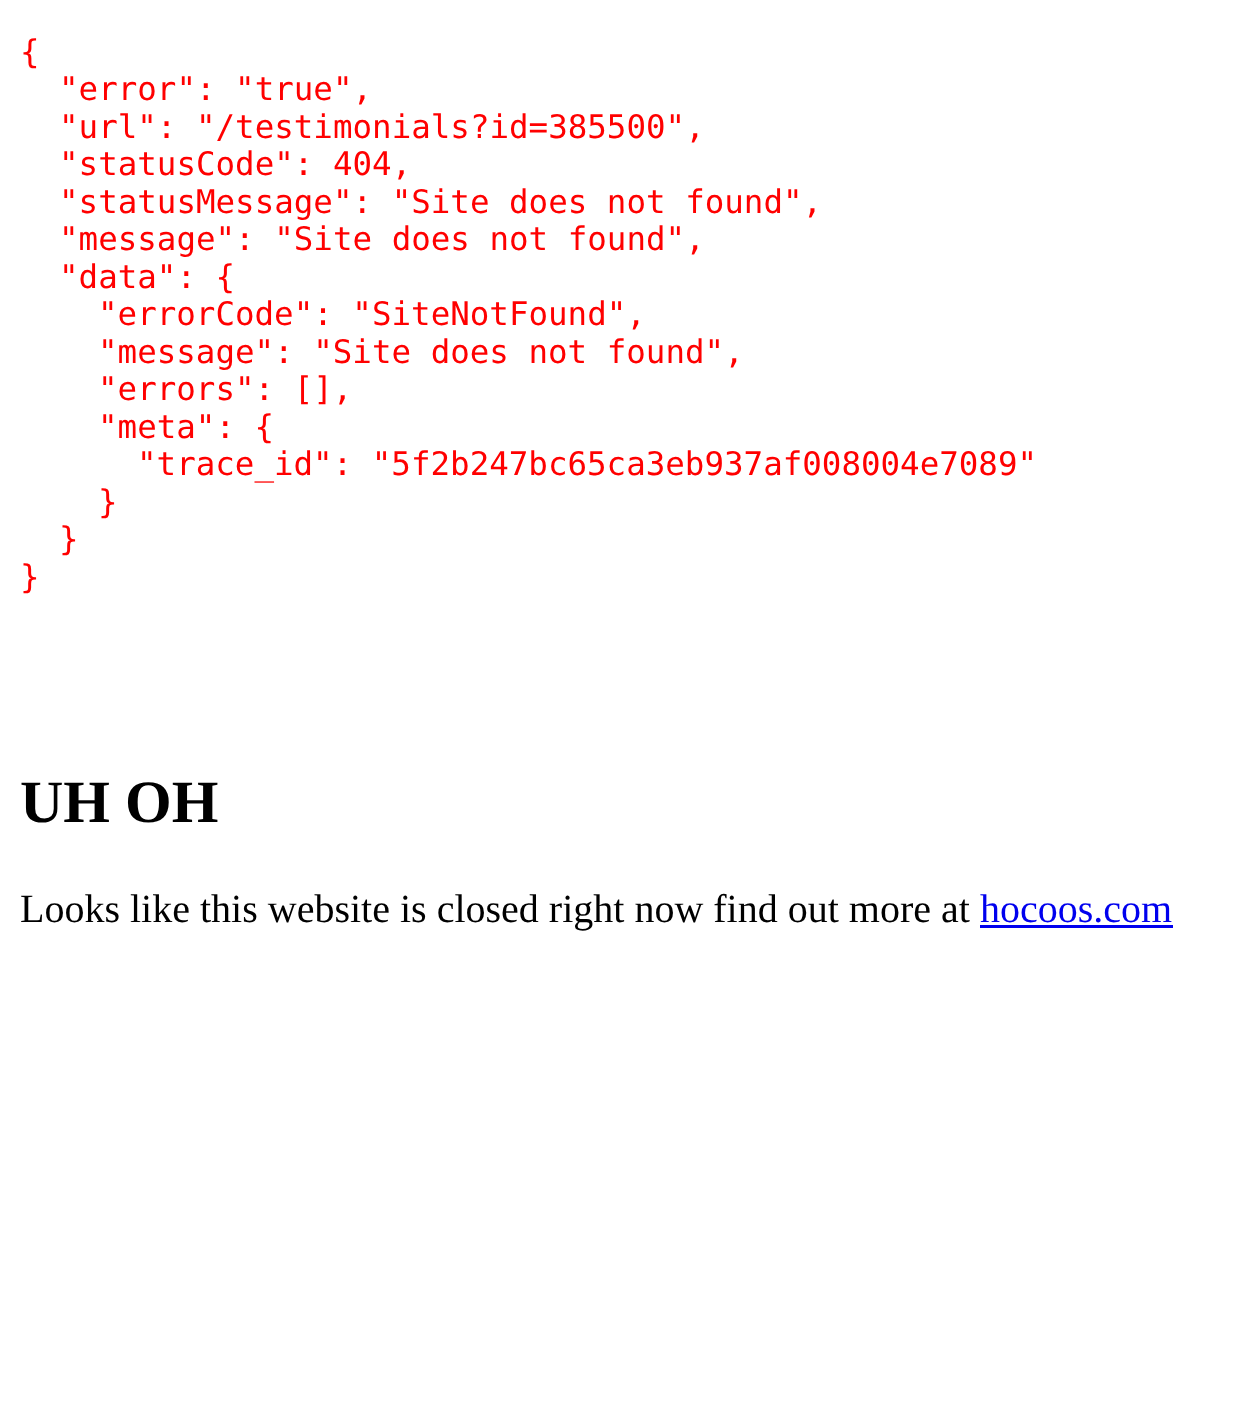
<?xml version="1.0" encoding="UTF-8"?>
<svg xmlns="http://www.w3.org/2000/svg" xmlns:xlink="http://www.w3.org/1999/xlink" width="1251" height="1424">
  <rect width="100%" height="100%" fill="#ffffff" />
  <rect x="980" y="925" width="193" height="3" fill="#0000ee" />
  <text x="20" y="63" style="font-family: DejaVu Sans Mono; font-size: 32.5px; fill: #ff0000">{</text>
  <text x="59" y="100" style="font-family: DejaVu Sans Mono; font-size: 32.5px; fill: #ff0000">"error": "true",</text>
  <text x="59" y="138" style="font-family: DejaVu Sans Mono; font-size: 32.5px; fill: #ff0000">"url": "/testimonials?id=385500",</text>
  <text x="59" y="175" style="font-family: DejaVu Sans Mono; font-size: 32.5px; fill: #ff0000">"statusCode": 404,</text>
  <text x="59" y="213" style="font-family: DejaVu Sans Mono; font-size: 32.5px; fill: #ff0000">"statusMessage": "Site does not found",</text>
  <text x="59" y="250" style="font-family: DejaVu Sans Mono; font-size: 32.5px; fill: #ff0000">"message": "Site does not found",</text>
  <text x="59" y="288" style="font-family: DejaVu Sans Mono; font-size: 32.5px; fill: #ff0000">"data": {</text>
  <text x="98" y="325" style="font-family: DejaVu Sans Mono; font-size: 32.5px; fill: #ff0000">"errorCode": "SiteNotFound",</text>
  <text x="98" y="363" style="font-family: DejaVu Sans Mono; font-size: 32.5px; fill: #ff0000">"message": "Site does not found",</text>
  <text x="98" y="400" style="font-family: DejaVu Sans Mono; font-size: 32.5px; fill: #ff0000">"errors": [],</text>
  <text x="98" y="438" style="font-family: DejaVu Sans Mono; font-size: 32.5px; fill: #ff0000">"meta": {</text>
  <text x="137" y="475" style="font-family: DejaVu Sans Mono; font-size: 32.5px; fill: #ff0000">"trace_id": "5f2b247bc65ca3eb937af008004e7089"</text>
  <text x="98" y="513" style="font-family: DejaVu Sans Mono; font-size: 32.5px; fill: #ff0000">}</text>
  <text x="59" y="550" style="font-family: DejaVu Sans Mono; font-size: 32.5px; fill: #ff0000">}</text>
  <text x="20" y="588" style="font-family: DejaVu Sans Mono; font-size: 32.5px; fill: #ff0000">}</text>
  <text x="20" y="822" style="font-family: Liberation Serif; font-size: 60px; font-weight: bold; fill: #000000">UH OH</text>
  <text x="20" y="922" style="font-family: Liberation Serif; font-size: 40px; fill: #000000">Looks like this website is closed right now find out more at</text>
  <text x="980" y="922" style="font-family: Liberation Serif; font-size: 40px; fill: #0000ee">hocoos.com</text>
</svg>
